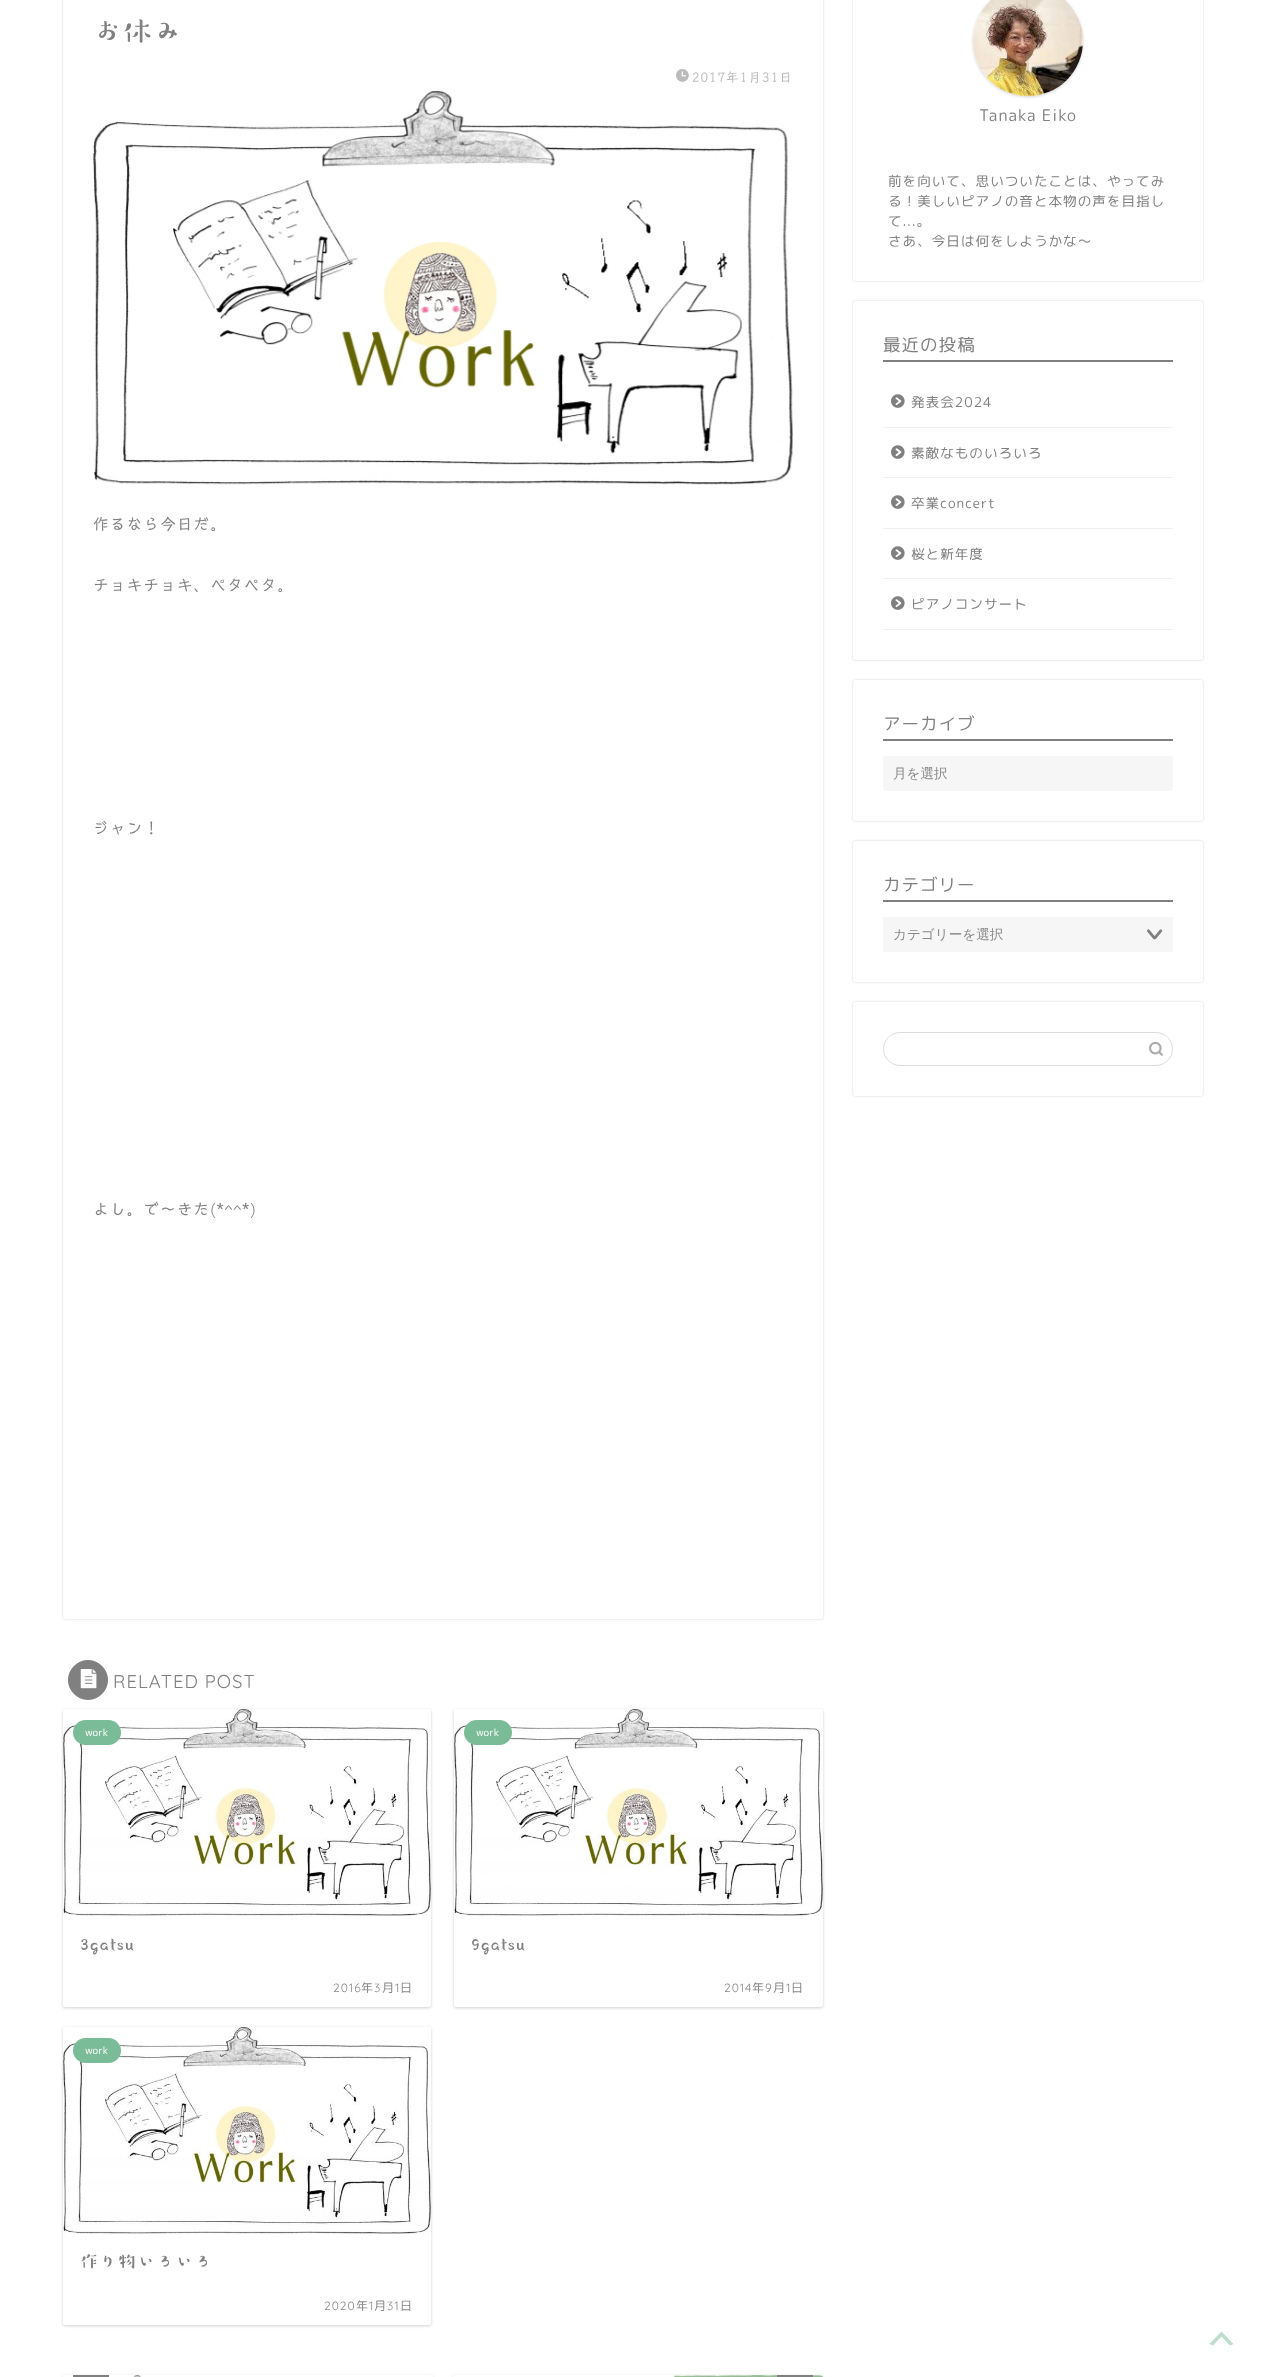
<?xml version="1.0" encoding="UTF-8"?>
<svg xmlns="http://www.w3.org/2000/svg" xmlns:xlink="http://www.w3.org/1999/xlink" width="1266" height="2377">
  <rect width="100%" height="100%" fill="#ffffff" />
  <rect x="63" y="-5" width="760" height="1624" rx="2" fill="#000000" fill-opacity="0.18" filter="blur(1px)" />
  <rect x="63" y="-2" width="760" height="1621" rx="2" fill="#ffffff" />
  <image x="676" y="69" width="13" height="13" xlink:href="image1.png" />
  <image x="93" y="91" width="700" height="394" xlink:href="image2.png" />
  <circle cx="88" cy="1680" r="19.5" fill="#808080" stroke="#808080" />
  <image x="80" y="1669" width="17" height="20" xlink:href="image3.png" />
  <rect x="63" y="1710" width="368" height="298" rx="2" fill="#000000" fill-opacity="0.18" filter="blur(1.5px)" />
  <rect x="63" y="1709" width="368" height="298" rx="2" fill="#ffffff" />
  <image x="63" y="1709" width="368" height="207" xlink:href="image4.png" />
  <rect x="73" y="1720" width="48" height="25" rx="12.5" fill="#7bbc98" />
  <rect x="454" y="1710" width="369" height="298" rx="2" fill="#000000" fill-opacity="0.18" filter="blur(1.5px)" />
  <rect x="454" y="1709" width="369" height="298" rx="2" fill="#ffffff" />
  <image x="454" y="1709" width="369" height="207" xlink:href="image5.png" />
  <rect x="464" y="1720" width="48" height="25" rx="12.5" fill="#7bbc98" />
  <rect x="63" y="2028" width="368" height="298" rx="2" fill="#000000" fill-opacity="0.18" filter="blur(1.5px)" />
  <rect x="63" y="2027" width="368" height="298" rx="2" fill="#ffffff" />
  <image x="63" y="2027" width="368" height="207" xlink:href="image4.png" />
  <rect x="73" y="2038" width="48" height="25" rx="12.5" fill="#7bbc98" />
  <rect x="63" y="2376" width="370" height="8" rx="2" fill="#000000" fill-opacity="0.18" filter="blur(1.5px)" />
  <rect x="63" y="2375" width="370" height="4" rx="2" fill="#ffffff" />
  <rect x="73" y="2375" width="36" height="2" fill="#808080" />
  <image x="133" y="2375" width="9" height="2" xlink:href="image6.png" />
  <rect x="453" y="2376" width="370" height="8" rx="2" fill="#000000" fill-opacity="0.18" filter="blur(1.5px)" />
  <rect x="453" y="2375" width="370" height="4" rx="2" fill="#ffffff" />
  <image x="672" y="2375" width="151" height="2" xlink:href="image7.png" />
  <rect x="777" y="2375" width="36" height="2" fill="#808080" />
  <rect x="853" y="-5" width="350" height="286" rx="2" fill="#000000" fill-opacity="0.18" filter="blur(1px)" />
  <rect x="853" y="-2" width="350" height="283" rx="2" fill="#ffffff" />
  <rect x="973" y="-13" width="110" height="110" rx="55" fill="#000000" fill-opacity="0.18" filter="blur(1.5px)" />
  <circle cx="1028" cy="41" r="55" fill="#ffffff" />
  <image x="973" y="0" width="110" height="96" xlink:href="image8.png" />
  <rect x="853" y="301" width="350" height="359" rx="2" fill="#000000" fill-opacity="0.18" filter="blur(1px)" />
  <rect x="853" y="301" width="350" height="359" rx="2" fill="#ffffff" />
  <rect x="883" y="360" width="290" height="2" fill="#808080" />
  <rect x="883" y="427" width="290" height="1" fill="#f2f2f2" />
  <image x="891" y="394" width="14" height="14" xlink:href="image9.png" />
  <rect x="883" y="477" width="290" height="1" fill="#f2f2f2" />
  <image x="891" y="445" width="14" height="14" xlink:href="image9.png" />
  <rect x="883" y="528" width="290" height="1" fill="#f2f2f2" />
  <image x="891" y="495" width="14" height="14" xlink:href="image9.png" />
  <rect x="883" y="578" width="290" height="1" fill="#f2f2f2" />
  <image x="891" y="546" width="14" height="14" xlink:href="image9.png" />
  <rect x="883" y="629" width="290" height="1" fill="#f2f2f2" />
  <image x="891" y="596" width="14" height="14" xlink:href="image9.png" />
  <rect x="853" y="680" width="350" height="141" rx="2" fill="#000000" fill-opacity="0.18" filter="blur(1px)" />
  <rect x="853" y="680" width="350" height="141" rx="2" fill="#ffffff" />
  <rect x="883" y="739" width="290" height="2" fill="#808080" />
  <rect x="883" y="756" width="290" height="35" rx="2" fill="#f6f6f6" />
  <rect x="853" y="841" width="350" height="141" rx="2" fill="#000000" fill-opacity="0.18" filter="blur(1px)" />
  <rect x="853" y="841" width="350" height="141" rx="2" fill="#ffffff" />
  <rect x="883" y="900" width="290" height="2" fill="#808080" />
  <rect x="883" y="917" width="290" height="35" rx="2" fill="#f6f6f6" />
  <image x="1147" y="929" width="16" height="11" xlink:href="image10.png" />
  <rect x="853" y="1002" width="350" height="94" rx="2" fill="#000000" fill-opacity="0.18" filter="blur(1px)" />
  <rect x="853" y="1002" width="350" height="94" rx="2" fill="#ffffff" />
  <rect x="883.5" y="1032.5" width="289" height="33" rx="16.5" fill="none" stroke="#dddddd" />
  <image x="1149" y="1041" width="14" height="15" xlink:href="image11.png" />
  <path d="M 1230 2345.5 l -8.5 -9 l -8.5 9 l -3.5 -1.5 l 12 -12.5 l 12 12.5 z" fill="#bddecc" />
  <text x="93" y="42" style="font-family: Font; font-size: 29px; font-weight: 500; letter-spacing: 1px; fill: #808080">お休み</text>
  <text x="692" y="82" style="font-family: Font; font-size: 12.75px; letter-spacing: 1px; fill: #bbbbbb">2017年1月31日</text>
  <text x="93" y="530" style="font-family: Font; font-size: 16px; letter-spacing: 0.75px; fill: #808080">作るなら今日だ。</text>
  <text x="93" y="591" style="font-family: Font; font-size: 16px; letter-spacing: 0.75px; fill: #808080">チョキチョキ、ペタペタ。</text>
  <text x="93" y="834" style="font-family: Font; font-size: 16px; letter-spacing: 0.75px; fill: #808080">ジャン！</text>
  <text x="93" y="1215" style="font-family: Font; font-size: 16px; letter-spacing: 0.75px; fill: #808080">よし。で〜きた(*^^*)</text>
  <text x="113" y="1688" style="font-family: Quicksand; font-size: 18.5px; font-weight: 300; letter-spacing: 1px; fill: #808080">RELATED POST</text>
  <text x="85" y="1736" style="font-family: 'Rounded Mplus 1c'; font-size: 10px; fill: #ffffff">work</text>
  <text x="80" y="1950" style="font-family: Font; font-size: 18px; font-weight: 500; letter-spacing: 1px; fill: #808080">3gatsu</text>
  <text x="333" y="1992" style="font-family: Quicksand; font-size: 12px; font-weight: 300; letter-spacing: 1px; fill: #888888">2016</text>
  <text x="361" y="1992" style="font-family: 'Rounded Mplus 1c'; font-size: 12px; letter-spacing: 1px; fill: #888888">年</text>
  <text x="374" y="1992" style="font-family: Quicksand; font-size: 12px; font-weight: 300; letter-spacing: 1px; fill: #888888">3</text>
  <text x="382" y="1992" style="font-family: 'Rounded Mplus 1c'; font-size: 12px; letter-spacing: 1px; fill: #888888">月</text>
  <text x="395" y="1992" style="font-family: Quicksand; font-size: 12px; font-weight: 300; letter-spacing: 1px; fill: #888888">1</text>
  <text x="400" y="1992" style="font-family: 'Rounded Mplus 1c'; font-size: 12px; letter-spacing: 1px; fill: #888888">日</text>
  <text x="476" y="1736" style="font-family: 'Rounded Mplus 1c'; font-size: 10px; fill: #ffffff">work</text>
  <text x="471" y="1950" style="font-family: Font; font-size: 18px; font-weight: 500; letter-spacing: 1px; fill: #808080">9gatsu</text>
  <text x="724" y="1992" style="font-family: Quicksand; font-size: 12px; font-weight: 300; letter-spacing: 1px; fill: #888888">2014</text>
  <text x="752" y="1992" style="font-family: 'Rounded Mplus 1c'; font-size: 12px; letter-spacing: 1px; fill: #888888">年</text>
  <text x="765" y="1992" style="font-family: Quicksand; font-size: 12px; font-weight: 300; letter-spacing: 1px; fill: #888888">9</text>
  <text x="773" y="1992" style="font-family: 'Rounded Mplus 1c'; font-size: 12px; letter-spacing: 1px; fill: #888888">月</text>
  <text x="786" y="1992" style="font-family: Quicksand; font-size: 12px; font-weight: 300; letter-spacing: 1px; fill: #888888">1</text>
  <text x="791" y="1992" style="font-family: 'Rounded Mplus 1c'; font-size: 12px; letter-spacing: 1px; fill: #888888">日</text>
  <text x="85" y="2054" style="font-family: 'Rounded Mplus 1c'; font-size: 10px; fill: #ffffff">work</text>
  <text x="80" y="2268" style="font-family: Font; font-size: 18px; font-weight: 500; letter-spacing: 1px; fill: #808080">作り物いろいろ</text>
  <text x="324" y="2310" style="font-family: Quicksand; font-size: 12px; font-weight: 300; letter-spacing: 1px; fill: #888888">2020</text>
  <text x="356" y="2310" style="font-family: 'Rounded Mplus 1c'; font-size: 12px; letter-spacing: 1px; fill: #888888">年</text>
  <text x="369" y="2310" style="font-family: Quicksand; font-size: 12px; font-weight: 300; letter-spacing: 1px; fill: #888888">1</text>
  <text x="374" y="2310" style="font-family: 'Rounded Mplus 1c'; font-size: 12px; letter-spacing: 1px; fill: #888888">月</text>
  <text x="387" y="2310" style="font-family: Quicksand; font-size: 12px; font-weight: 300; letter-spacing: 1px; fill: #888888">31</text>
  <text x="400" y="2310" style="font-family: 'Rounded Mplus 1c'; font-size: 12px; letter-spacing: 1px; fill: #888888">日</text>
  <text x="979" y="121" style="font-family: 'Rounded Mplus 1c'; font-size: 16px; letter-spacing: 1px; fill: #808080">Tanaka Eiko</text>
  <text x="888" y="186" style="font-family: 'Rounded Mplus 1c'; font-size: 13.6px; letter-spacing: 1px; fill: #808080">前を向いて、思いついたことは、やってみ</text>
  <text x="888" y="206" style="font-family: 'Rounded Mplus 1c'; font-size: 13.6px; letter-spacing: 1px; fill: #808080">る！美しいピアノの音と本物の声を目指し</text>
  <text x="888" y="226" style="font-family: 'Rounded Mplus 1c'; font-size: 13.6px; letter-spacing: 1px; fill: #808080">て...。</text>
  <text x="888" y="246" style="font-family: 'Rounded Mplus 1c'; font-size: 13.6px; letter-spacing: 1px; fill: #808080">さあ、今日は何をしようかな〜</text>
  <text x="883" y="351" style="font-family: 'Rounded Mplus 1c'; font-size: 17.5px; letter-spacing: 1px; fill: #808080">最近の投稿</text>
  <text x="911" y="407" style="font-family: 'Rounded Mplus 1c'; font-size: 13.6px; letter-spacing: 1px; fill: #808080">発表会2024</text>
  <text x="911" y="458" style="font-family: 'Rounded Mplus 1c'; font-size: 13.6px; letter-spacing: 1px; fill: #808080">素敵なものいろいろ</text>
  <text x="911" y="508" style="font-family: 'Rounded Mplus 1c'; font-size: 13.6px; letter-spacing: 1px; fill: #808080">卒業concert</text>
  <text x="911" y="559" style="font-family: 'Rounded Mplus 1c'; font-size: 13.6px; letter-spacing: 1px; fill: #808080">桜と新年度</text>
  <text x="911" y="609" style="font-family: 'Rounded Mplus 1c'; font-size: 13.6px; letter-spacing: 1px; fill: #808080">ピアノコンサート</text>
  <text x="883" y="730" style="font-family: 'Rounded Mplus 1c'; font-size: 17.5px; letter-spacing: 1px; fill: #808080">アーカイブ</text>
  <text x="893" y="778" style="font-family: WenQuanYi Zen Hei; font-size: 13.6px; font-weight: 500; fill: #888888">月を選択</text>
  <text x="883" y="891" style="font-family: 'Rounded Mplus 1c'; font-size: 17.5px; letter-spacing: 1px; fill: #808080">カテゴリー</text>
  <text x="893" y="939" style="font-family: WenQuanYi Zen Hei; font-size: 13.6px; font-weight: 500; fill: #888888">カテゴリーを選択</text>
</svg>
